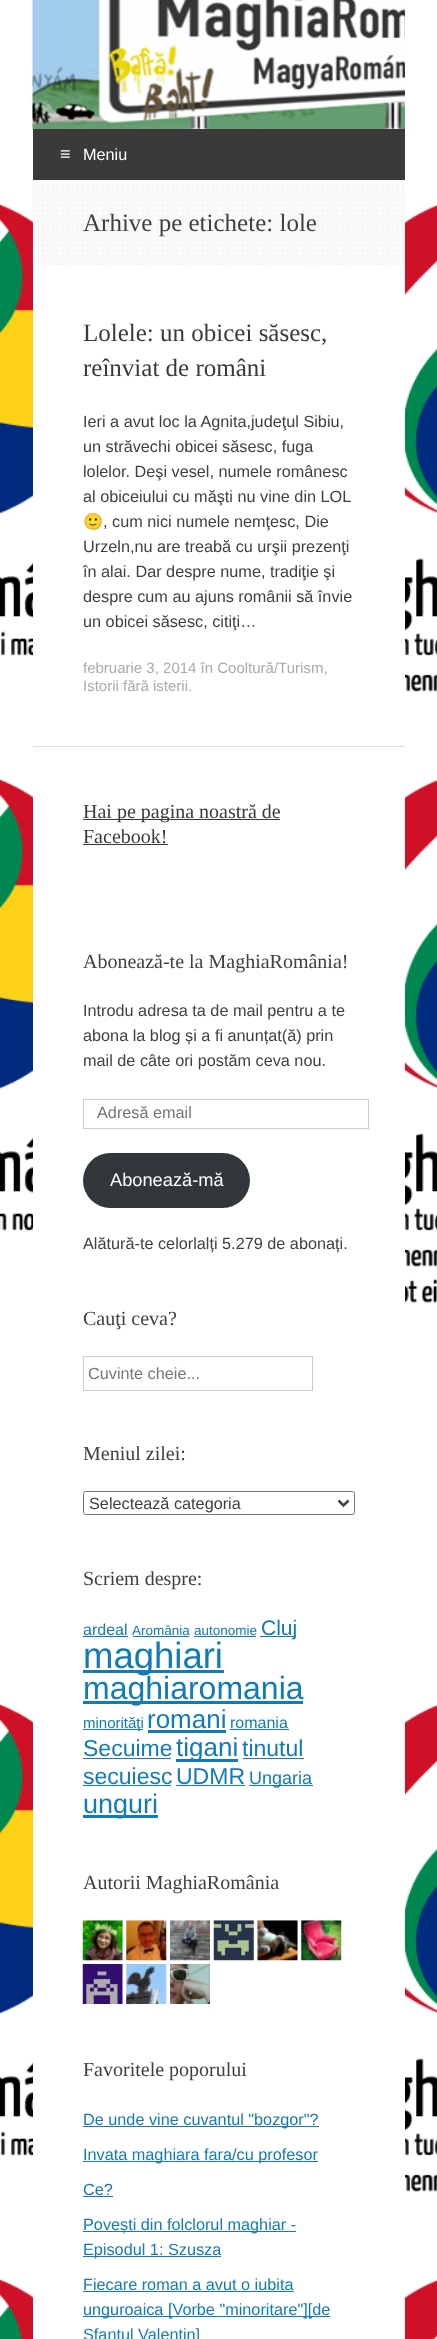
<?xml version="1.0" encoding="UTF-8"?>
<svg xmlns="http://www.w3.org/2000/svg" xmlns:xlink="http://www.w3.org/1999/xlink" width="437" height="2339">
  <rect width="100%" height="100%" fill="#ffffff" />
  <image x="0" y="0" width="437" height="2339" xlink:href="image1.png" />
  <rect x="33" y="221" width="372" height="2118" fill="#ffffff" />
  <image x="32" y="0" width="373" height="129" xlink:href="image2.png" />
  <rect x="33" y="129" width="372" height="51" fill="#3a3a3a" />
  <image x="32" y="180" width="373" height="85" xlink:href="image3.png" />
  <rect x="33" y="746" width="372" height="1" fill="#dddddd" />
  <rect x="83" y="819" width="197" height="1" fill="#3a3a3a" />
  <rect x="83" y="844" width="85" height="1" fill="#3a3a3a" />
  <rect x="83.5" y="1099.5" width="285" height="29" fill="none" stroke="#cccccc" />
  <rect x="83" y="1153" width="167" height="55" rx="27.5" fill="#32373c" />
  <rect x="83.5" y="1356.5" width="229" height="34" fill="none" stroke="#cccccc" />
  <rect x="83.5" y="1491.5" width="271" height="23" rx="2" fill="none" stroke="#767676" />
  <path d="M 338.5 1500.5 l 5 5 l 5 -5" fill="none" stroke="#404040" stroke-width="2.5" />
  <rect x="83" y="1636" width="45" height="1" fill="#117bb8" />
  <rect x="133" y="1636" width="56" height="1" fill="#117bb8" />
  <rect x="194" y="1636" width="62" height="1" fill="#117bb8" />
  <rect x="260" y="1636" width="36" height="1" fill="#117bb8" />
  <rect x="83" y="1670" width="141" height="3" fill="#117bb8" />
  <rect x="83" y="1701" width="220" height="3" fill="#117bb8" />
  <rect x="83" y="1729" width="60" height="1" fill="#117bb8" />
  <rect x="148" y="1730" width="78" height="3" fill="#117bb8" />
  <rect x="230" y="1729" width="59" height="1" fill="#117bb8" />
  <rect x="83" y="1758" width="88" height="1" fill="#117bb8" />
  <rect x="176" y="1759" width="62" height="3" fill="#117bb8" />
  <rect x="243" y="1758" width="61" height="1" fill="#117bb8" />
  <rect x="83" y="1785" width="88" height="1" fill="#117bb8" />
  <rect x="176" y="1785" width="69" height="1" fill="#117bb8" />
  <rect x="249" y="1785" width="64" height="1" fill="#117bb8" />
  <rect x="83" y="1815" width="75" height="3" fill="#117bb8" />
  <image x="82" y="1920" width="41" height="41" xlink:href="image4.png" />
  <image x="126" y="1920" width="41" height="41" xlink:href="image5.png" />
  <image x="170" y="1920" width="40" height="41" xlink:href="image6.png" />
  <image x="213" y="1920" width="41" height="41" xlink:href="image7.png" />
  <image x="257" y="1920" width="41" height="41" xlink:href="image8.png" />
  <image x="301" y="1920" width="41" height="41" xlink:href="image9.png" />
  <image x="82" y="1964" width="41" height="40" xlink:href="image10.png" />
  <image x="126" y="1964" width="41" height="40" xlink:href="image11.png" />
  <image x="170" y="1964" width="40" height="40" xlink:href="image12.png" />
  <rect x="83" y="2126" width="236" height="1" fill="#117bb8" />
  <rect x="83" y="2161" width="235" height="1" fill="#117bb8" />
  <rect x="83" y="2196" width="30" height="1" fill="#117bb8" />
  <rect x="83" y="2231" width="213" height="1" fill="#117bb8" />
  <rect x="83" y="2256" width="138" height="1" fill="#117bb8" />
  <rect x="83" y="2291" width="211" height="1" fill="#117bb8" />
  <rect x="83" y="2316" width="247" height="1" fill="#117bb8" />
  <text x="60" y="160" style="font-family: Liberation Sans; font-size: 18px; fill: #ffffff">≡</text>
  <text x="83" y="160" style="font-family: Liberation Sans; font-size: 16.25px; fill: #ffffff">Meniu</text>
  <text x="83" y="231" style="font-family: Liberation Serif; font-size: 25px; fill: #404040">Arhive pe etichete: lole</text>
  <text x="83" y="341" style="font-family: Liberation Serif; font-size: 25px; fill: #3a3a3a">Lolele: un obicei săsesc,</text>
  <text x="83" y="376" style="font-family: Liberation Serif; font-size: 25px; fill: #3a3a3a">reînviat de români</text>
  <text x="83" y="427" style="font-family: Liberation Sans; font-size: 16.25px; fill: #404040">Ieri a avut loc la Agnita,judeţul Sibiu,</text>
  <text x="83" y="452" style="font-family: Liberation Sans; font-size: 16.25px; fill: #404040">un străvechi obicei săsesc, fuga</text>
  <text x="83" y="477" style="font-family: Liberation Sans; font-size: 16.25px; fill: #404040">lolelor. Deşi vesel, numele românesc</text>
  <text x="83" y="502" style="font-family: Liberation Sans; font-size: 16.25px; fill: #404040">al obiceiului cu măşti nu vine din LOL</text>
  <text x="83" y="527" style="font-family: Noto Color Emoji; font-size: 16.25px; fill: #404040">🙂</text>
  <text x="103" y="527" style="font-family: Liberation Sans; font-size: 16.25px; fill: #404040">, cum nici numele nemţesc, Die</text>
  <text x="83" y="552" style="font-family: Liberation Sans; font-size: 16.25px; fill: #404040">Urzeln,nu are treabă cu urşii prezenţi</text>
  <text x="83" y="577" style="font-family: Liberation Sans; font-size: 16.25px; fill: #404040">în alai. Dar despre nume, tradiţie şi</text>
  <text x="83" y="602" style="font-family: Liberation Sans; font-size: 16.25px; fill: #404040">despre cum au ajuns românii să învie</text>
  <text x="83" y="627" style="font-family: Liberation Sans; font-size: 16.25px; fill: #404040">un obicei săsesc, citiţi…</text>
  <text x="83" y="673" style="font-family: Liberation Sans; font-size: 15px; fill: #aaaaaa">februarie 3, 2014 în Cooltură/Turism,</text>
  <text x="83" y="691" style="font-family: Liberation Sans; font-size: 15px; fill: #aaaaaa">Istorii fără isterii.</text>
  <text x="83" y="818" style="font-family: Liberation Serif; font-size: 20px; fill: #3a3a3a">Hai pe pagina noastră de</text>
  <text x="83" y="843" style="font-family: Liberation Serif; font-size: 20px; fill: #3a3a3a">Facebook!</text>
  <text x="83" y="968" style="font-family: Liberation Serif; font-size: 20px; fill: #404040">Abonează-te la MaghiaRomânia!</text>
  <text x="83" y="1016" style="font-family: Liberation Sans; font-size: 16.25px; fill: #404040">Introdu adresa ta de mail pentru a te</text>
  <text x="83" y="1041" style="font-family: Liberation Sans; font-size: 16.25px; fill: #404040">abona la blog și a fi anunțat(ă) prin</text>
  <text x="83" y="1066" style="font-family: Liberation Sans; font-size: 16.25px; fill: #404040">mail de câte ori postăm ceva nou.</text>
  <text x="97" y="1118" style="font-family: Liberation Sans; font-size: 16.25px; fill: #757575">Adresă email</text>
  <text x="110" y="1186" style="font-family: Liberation Sans; font-size: 18.25px; fill: #ffffff">Abonează-mă</text>
  <text x="83" y="1249" style="font-family: Liberation Sans; font-size: 16.25px; fill: #404040">Alătură-te celorlalți 5.279 de abonați.</text>
  <text x="83" y="1325" style="font-family: Liberation Serif; font-size: 20px; fill: #404040">Cauţi ceva?</text>
  <text x="88" y="1379" style="font-family: Liberation Sans; font-size: 16.25px; fill: #757575">Cuvinte cheie...</text>
  <text x="83" y="1460" style="font-family: Liberation Serif; font-size: 20px; fill: #404040">Meniul zilei:</text>
  <text x="89" y="1509" style="font-family: Liberation Sans; font-size: 16.25px; fill: #404040">Selectează categoria</text>
  <text x="83" y="1585" style="font-family: Liberation Serif; font-size: 20px; fill: #404040">Scriem despre:</text>
  <text x="83" y="1635" style="font-family: Liberation Sans; font-size: 16px; fill: #117bb8">ardeal</text>
  <text x="132" y="1635" style="font-family: Liberation Sans; font-size: 13.5px; fill: #117bb8">Aromânia</text>
  <text x="194" y="1635" style="font-family: Liberation Sans; font-size: 13.5px; fill: #117bb8">autonomie</text>
  <text x="261" y="1635" style="font-family: Liberation Sans; font-size: 21px; fill: #117bb8">Cluj</text>
  <text x="83" y="1668" style="font-family: Liberation Sans; font-size: 36.5px; fill: #117bb8">maghiari</text>
  <text x="83" y="1699" style="font-family: Liberation Sans; font-size: 32px; fill: #117bb8">maghiaromania</text>
  <text x="83" y="1728" style="font-family: Liberation Sans; font-size: 15px; fill: #117bb8">minorităţi</text>
  <text x="147" y="1728" style="font-family: Liberation Sans; font-size: 26px; fill: #117bb8">romani</text>
  <text x="230" y="1728" style="font-family: Liberation Sans; font-size: 16px; fill: #117bb8">romania</text>
  <text x="83" y="1756" style="font-family: Liberation Sans; font-size: 23px; fill: #117bb8">Secuime</text>
  <text x="176" y="1756" style="font-family: Liberation Sans; font-size: 26px; fill: #117bb8">tigani</text>
  <text x="242" y="1756" style="font-family: Liberation Sans; font-size: 23px; fill: #117bb8">tinutul</text>
  <text x="83" y="1784" style="font-family: Liberation Sans; font-size: 23px; fill: #117bb8">secuiesc</text>
  <text x="176" y="1784" style="font-family: Liberation Sans; font-size: 23px; fill: #117bb8">UDMR</text>
  <text x="249" y="1784" style="font-family: Liberation Sans; font-size: 18px; fill: #117bb8">Ungaria</text>
  <text x="83" y="1813" style="font-family: Liberation Sans; font-size: 27px; fill: #117bb8">unguri</text>
  <text x="83" y="1889" style="font-family: Liberation Serif; font-size: 20px; fill: #404040">Autorii MaghiaRomânia</text>
  <text x="83" y="2076" style="font-family: Liberation Serif; font-size: 20px; fill: #404040">Favoritele poporului</text>
  <text x="83" y="2125" style="font-family: Liberation Sans; font-size: 16.25px; fill: #117bb8">De unde vine cuvantul "bozgor"?</text>
  <text x="83" y="2160" style="font-family: Liberation Sans; font-size: 16.25px; fill: #117bb8">Invata maghiara fara/cu profesor</text>
  <text x="83" y="2195" style="font-family: Liberation Sans; font-size: 16.25px; fill: #117bb8">Ce?</text>
  <text x="83" y="2230" style="font-family: Liberation Sans; font-size: 16.25px; fill: #117bb8">Povești din folclorul maghiar -</text>
  <text x="83" y="2255" style="font-family: Liberation Sans; font-size: 16.25px; fill: #117bb8">Episodul 1: Szusza</text>
  <text x="83" y="2290" style="font-family: Liberation Sans; font-size: 16.25px; fill: #117bb8">Fiecare roman a avut o iubita</text>
  <text x="83" y="2315" style="font-family: Liberation Sans; font-size: 16.25px; fill: #117bb8">unguroaica [Vorbe "minoritare"][de</text>
  <text x="83" y="2340" style="font-family: Liberation Sans; font-size: 16.25px; fill: #117bb8">Sfantul Valentin]</text>
</svg>
